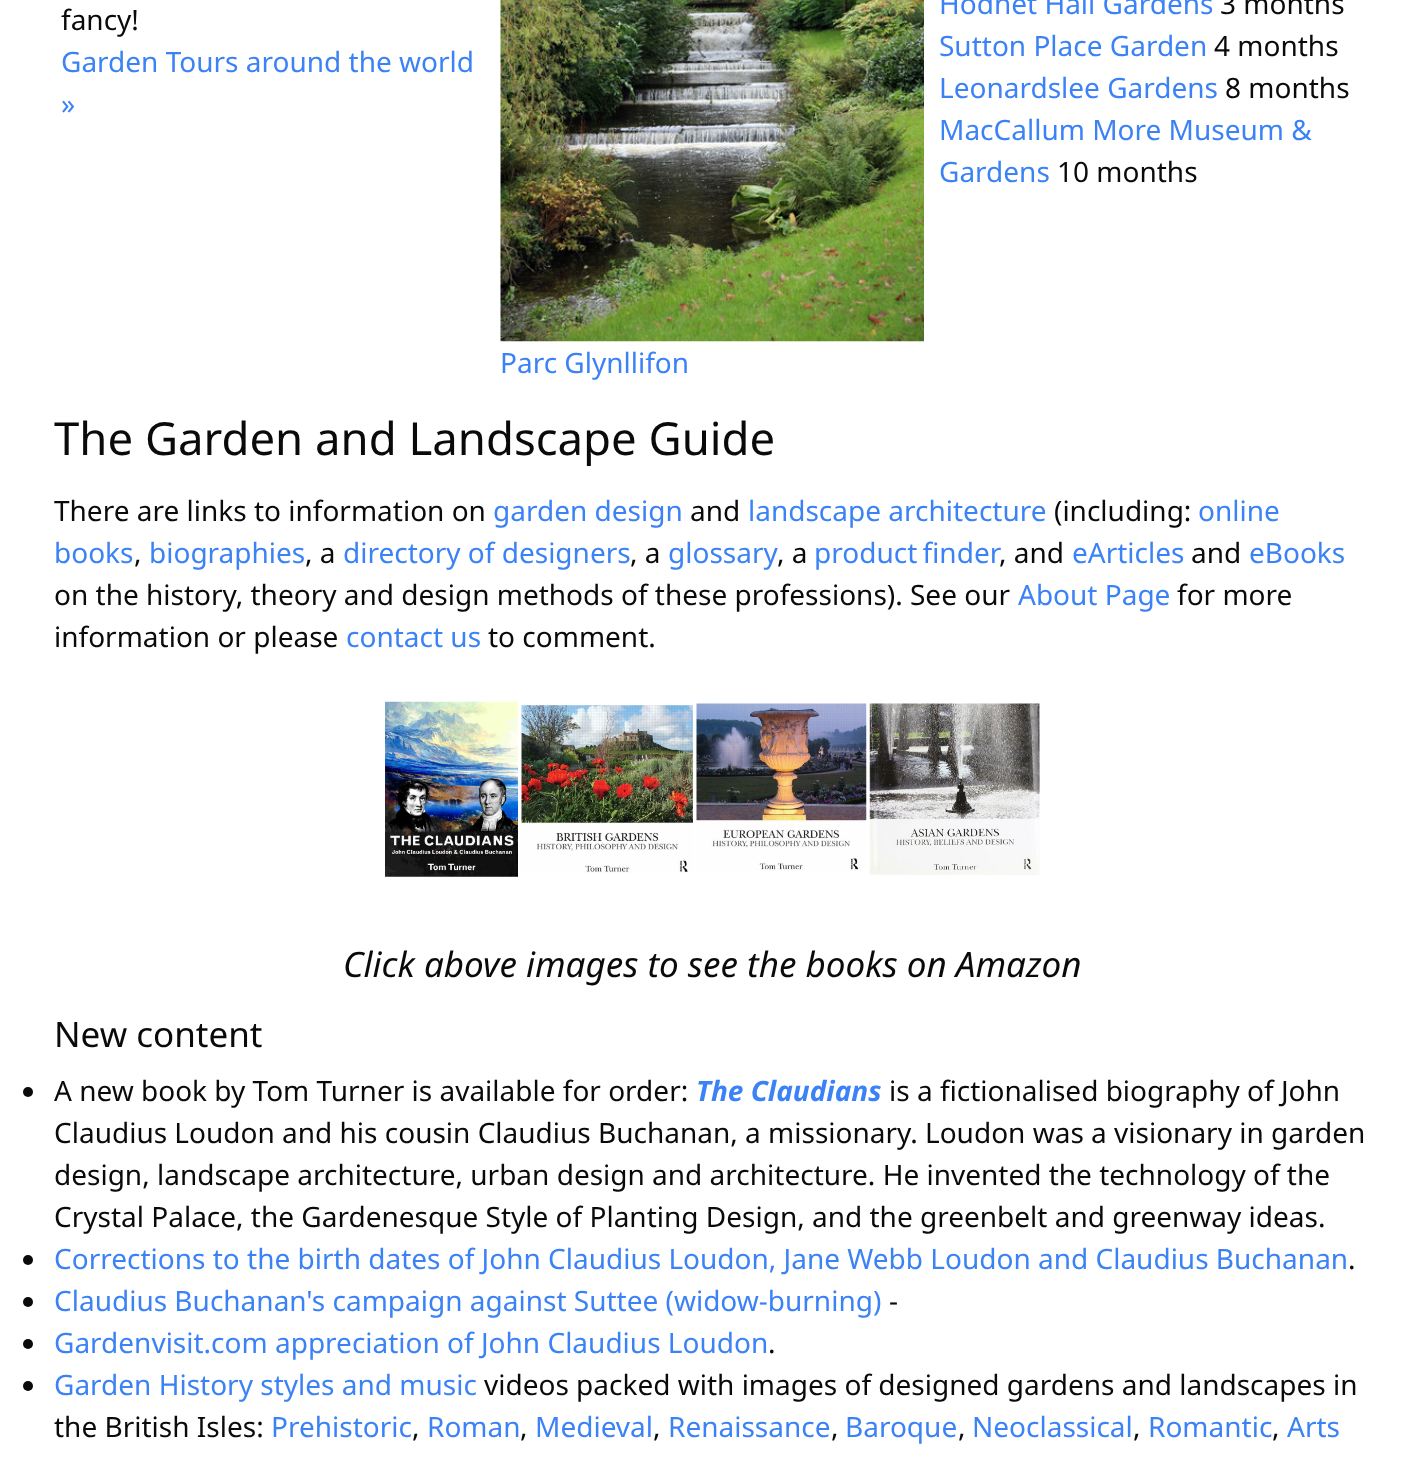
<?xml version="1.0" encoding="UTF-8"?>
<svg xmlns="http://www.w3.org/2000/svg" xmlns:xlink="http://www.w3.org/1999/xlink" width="1423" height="1469">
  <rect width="100%" height="100%" fill="#ffffff" />
  <image x="500" y="0" width="424" height="342" xlink:href="image1.png" />
  <image x="385" y="701" width="133" height="176" xlink:href="image2.png" />
  <image x="521" y="705" width="172" height="168" xlink:href="image3.png" />
  <image x="696" y="703" width="171" height="168" xlink:href="image4.png" />
  <image x="869" y="703" width="171" height="172" xlink:href="image5.png" />
  <circle cx="28" cy="1092" r="5" fill="#0a0a0a" />
  <circle cx="28" cy="1260" r="5" fill="#0a0a0a" />
  <circle cx="28" cy="1302" r="5" fill="#0a0a0a" />
  <circle cx="28" cy="1344" r="5" fill="#0a0a0a" />
  <circle cx="28" cy="1386" r="5" fill="#0a0a0a" />
  <text x="61" y="30" style="font-family: Noto Sans; font-size: 28px; fill: #0a0a0a">fancy!</text>
  <text x="61" y="72" style="font-family: Noto Sans; font-size: 28px; fill: #3b82f6">Garden Tours around the world</text>
  <text x="61" y="114" style="font-family: Noto Sans; font-size: 28px; fill: #3b82f6">»</text>
  <text x="939" y="14" style="font-family: Noto Sans; font-size: 28px; fill: #3b82f6">Hodnet Hall Gardens</text>
  <text x="1220" y="14" style="font-family: Noto Sans; font-size: 28px; fill: #0a0a0a">3 months</text>
  <text x="939" y="56" style="font-family: Noto Sans; font-size: 28px; fill: #3b82f6">Sutton Place Garden</text>
  <text x="1214" y="56" style="font-family: Noto Sans; font-size: 28px; fill: #0a0a0a">4 months</text>
  <text x="939" y="98" style="font-family: Noto Sans; font-size: 28px; fill: #3b82f6">Leonardslee Gardens</text>
  <text x="1225" y="98" style="font-family: Noto Sans; font-size: 28px; fill: #0a0a0a">8 months</text>
  <text x="939" y="140" style="font-family: Noto Sans; font-size: 28px; fill: #3b82f6">MacCallum More Museum &amp;</text>
  <text x="939" y="182" style="font-family: Noto Sans; font-size: 28px; fill: #3b82f6">Gardens</text>
  <text x="1057" y="182" style="font-family: Noto Sans; font-size: 28px; fill: #0a0a0a">10 months</text>
  <text x="500" y="373" style="font-family: Noto Sans; font-size: 28px; fill: #3b82f6">Parc Glynllifon</text>
  <text x="54" y="455" style="font-family: Noto Sans; font-size: 45.5px; fill: #0a0a0a">The Garden and Landscape Guide</text>
  <text x="54" y="521" style="font-family: Noto Sans; font-size: 28px; fill: #0a0a0a">There are links to information on</text>
  <text x="493" y="521" style="font-family: Noto Sans; font-size: 28px; fill: #3b82f6">garden design</text>
  <text x="690" y="521" style="font-family: Noto Sans; font-size: 28px; fill: #0a0a0a">and</text>
  <text x="748" y="521" style="font-family: Noto Sans; font-size: 28px; fill: #3b82f6">landscape architecture</text>
  <text x="1054" y="521" style="font-family: Noto Sans; font-size: 28px; fill: #0a0a0a">(including:</text>
  <text x="1198" y="521" style="font-family: Noto Sans; font-size: 28px; fill: #3b82f6">online</text>
  <text x="54" y="563" style="font-family: Noto Sans; font-size: 28px; fill: #3b82f6">books</text>
  <text x="134" y="563" style="font-family: Noto Sans; font-size: 28px; fill: #0a0a0a">,</text>
  <text x="149" y="563" style="font-family: Noto Sans; font-size: 28px; fill: #3b82f6">biographies</text>
  <text x="305" y="563" style="font-family: Noto Sans; font-size: 28px; fill: #0a0a0a">, a</text>
  <text x="343" y="563" style="font-family: Noto Sans; font-size: 28px; fill: #3b82f6">directory of designers</text>
  <text x="630" y="563" style="font-family: Noto Sans; font-size: 28px; fill: #0a0a0a">, a</text>
  <text x="668" y="563" style="font-family: Noto Sans; font-size: 28px; fill: #3b82f6">glossary</text>
  <text x="777" y="563" style="font-family: Noto Sans; font-size: 28px; fill: #0a0a0a">, a</text>
  <text x="814" y="563" word-spacing="-2" style="font-family: Noto Sans; font-size: 28px; fill: #3b82f6">product finder</text>
  <text x="999" y="563" style="font-family: Noto Sans; font-size: 28px; fill: #0a0a0a">, and</text>
  <text x="1072" y="563" style="font-family: Noto Sans; font-size: 28px; fill: #3b82f6">eArticles</text>
  <text x="1191" y="563" style="font-family: Noto Sans; font-size: 28px; fill: #0a0a0a">and</text>
  <text x="1249" y="563" style="font-family: Noto Sans; font-size: 28px; fill: #3b82f6">eBooks</text>
  <text x="54" y="605" style="font-family: Noto Sans; font-size: 28px; fill: #0a0a0a">on the history, theory and design methods of these professions). See our</text>
  <text x="1018" y="605" style="font-family: Noto Sans; font-size: 28px; fill: #3b82f6">About Page</text>
  <text x="1177" y="605" style="font-family: Noto Sans; font-size: 28px; fill: #0a0a0a">for more</text>
  <text x="54" y="647" style="font-family: Noto Sans; font-size: 28px; fill: #0a0a0a">information or please</text>
  <text x="346" y="647" style="font-family: Noto Sans; font-size: 28px; fill: #3b82f6">contact us</text>
  <text x="488" y="647" style="font-family: Noto Sans; font-size: 28px; fill: #0a0a0a">to comment.</text>
  <text x="343" y="977" style="font-family: Noto Sans; font-size: 35px; font-style: italic; fill: #0a0a0a">Click above images to see the books on Amazon</text>
  <text x="54" y="1047" style="font-family: Noto Sans; font-size: 35px; fill: #0a0a0a">New content</text>
  <text x="54" y="1101" style="font-family: Noto Sans; font-size: 28px; fill: #0a0a0a">A new book by Tom Turner is available for order:</text>
  <text x="696" y="1101" style="font-family: Noto Sans; font-size: 28px; font-weight: bold; font-style: italic; fill: #3b82f6">The Claudians</text>
  <text x="889" y="1101" style="font-family: Noto Sans; font-size: 28px; fill: #0a0a0a">is a fictionalised biography of John</text>
  <text x="54" y="1143" style="font-family: Noto Sans; font-size: 28px; fill: #0a0a0a">Claudius Loudon and his cousin Claudius Buchanan, a missionary. Loudon was a visionary in garden</text>
  <text x="54" y="1185" style="font-family: Noto Sans; font-size: 28px; fill: #0a0a0a">design, landscape architecture, urban design and architecture. He invented the technology of the</text>
  <text x="54" y="1227" style="font-family: Noto Sans; font-size: 28px; fill: #0a0a0a">Crystal Palace, the Gardenesque Style of Planting Design, and the greenbelt and greenway ideas.</text>
  <text x="54" y="1269" style="font-family: Noto Sans; font-size: 28px; fill: #3b82f6">Corrections to the birth dates of John Claudius Loudon, Jane Webb Loudon and Claudius Buchanan</text>
  <text x="1348" y="1269" style="font-family: Noto Sans; font-size: 28px; fill: #0a0a0a">.</text>
  <text x="54" y="1311" style="font-family: Noto Sans; font-size: 28px; fill: #3b82f6">Claudius Buchanan's campaign against Suttee (widow-burning)</text>
  <text x="889" y="1311" style="font-family: Noto Sans; font-size: 28px; fill: #0a0a0a">-</text>
  <text x="54" y="1353" style="font-family: Noto Sans; font-size: 28px; fill: #3b82f6">Gardenvisit.com appreciation of John Claudius Loudon</text>
  <text x="768" y="1353" style="font-family: Noto Sans; font-size: 28px; fill: #0a0a0a">.</text>
  <text x="54" y="1395" style="font-family: Noto Sans; font-size: 28px; fill: #3b82f6">Garden History styles and music</text>
  <text x="484" y="1395" style="font-family: Noto Sans; font-size: 28px; fill: #0a0a0a">videos packed with images of designed gardens and landscapes in</text>
  <text x="54" y="1437" style="font-family: Noto Sans; font-size: 28px; fill: #0a0a0a">the British Isles:</text>
  <text x="271" y="1437" style="font-family: Noto Sans; font-size: 28px; fill: #3b82f6">Prehistoric</text>
  <text x="412" y="1437" style="font-family: Noto Sans; font-size: 28px; fill: #0a0a0a">,</text>
  <text x="427" y="1437" style="font-family: Noto Sans; font-size: 28px; fill: #3b82f6">Roman</text>
  <text x="520" y="1437" style="font-family: Noto Sans; font-size: 28px; fill: #0a0a0a">,</text>
  <text x="535" y="1437" style="font-family: Noto Sans; font-size: 28px; fill: #3b82f6">Medieval</text>
  <text x="653" y="1437" style="font-family: Noto Sans; font-size: 28px; fill: #0a0a0a">,</text>
  <text x="668" y="1437" style="font-family: Noto Sans; font-size: 28px; fill: #3b82f6">Renaissance</text>
  <text x="831" y="1437" style="font-family: Noto Sans; font-size: 28px; fill: #0a0a0a">,</text>
  <text x="845" y="1437" style="font-family: Noto Sans; font-size: 28px; fill: #3b82f6">Baroque</text>
  <text x="958" y="1437" style="font-family: Noto Sans; font-size: 28px; fill: #0a0a0a">,</text>
  <text x="972" y="1437" style="font-family: Noto Sans; font-size: 28px; fill: #3b82f6">Neoclassical</text>
  <text x="1133" y="1437" style="font-family: Noto Sans; font-size: 28px; fill: #0a0a0a">,</text>
  <text x="1148" y="1437" style="font-family: Noto Sans; font-size: 28px; fill: #3b82f6">Romantic</text>
  <text x="1272" y="1437" style="font-family: Noto Sans; font-size: 28px; fill: #0a0a0a">,</text>
  <text x="1287" y="1437" style="font-family: Noto Sans; font-size: 28px; fill: #3b82f6">Arts</text>
</svg>
